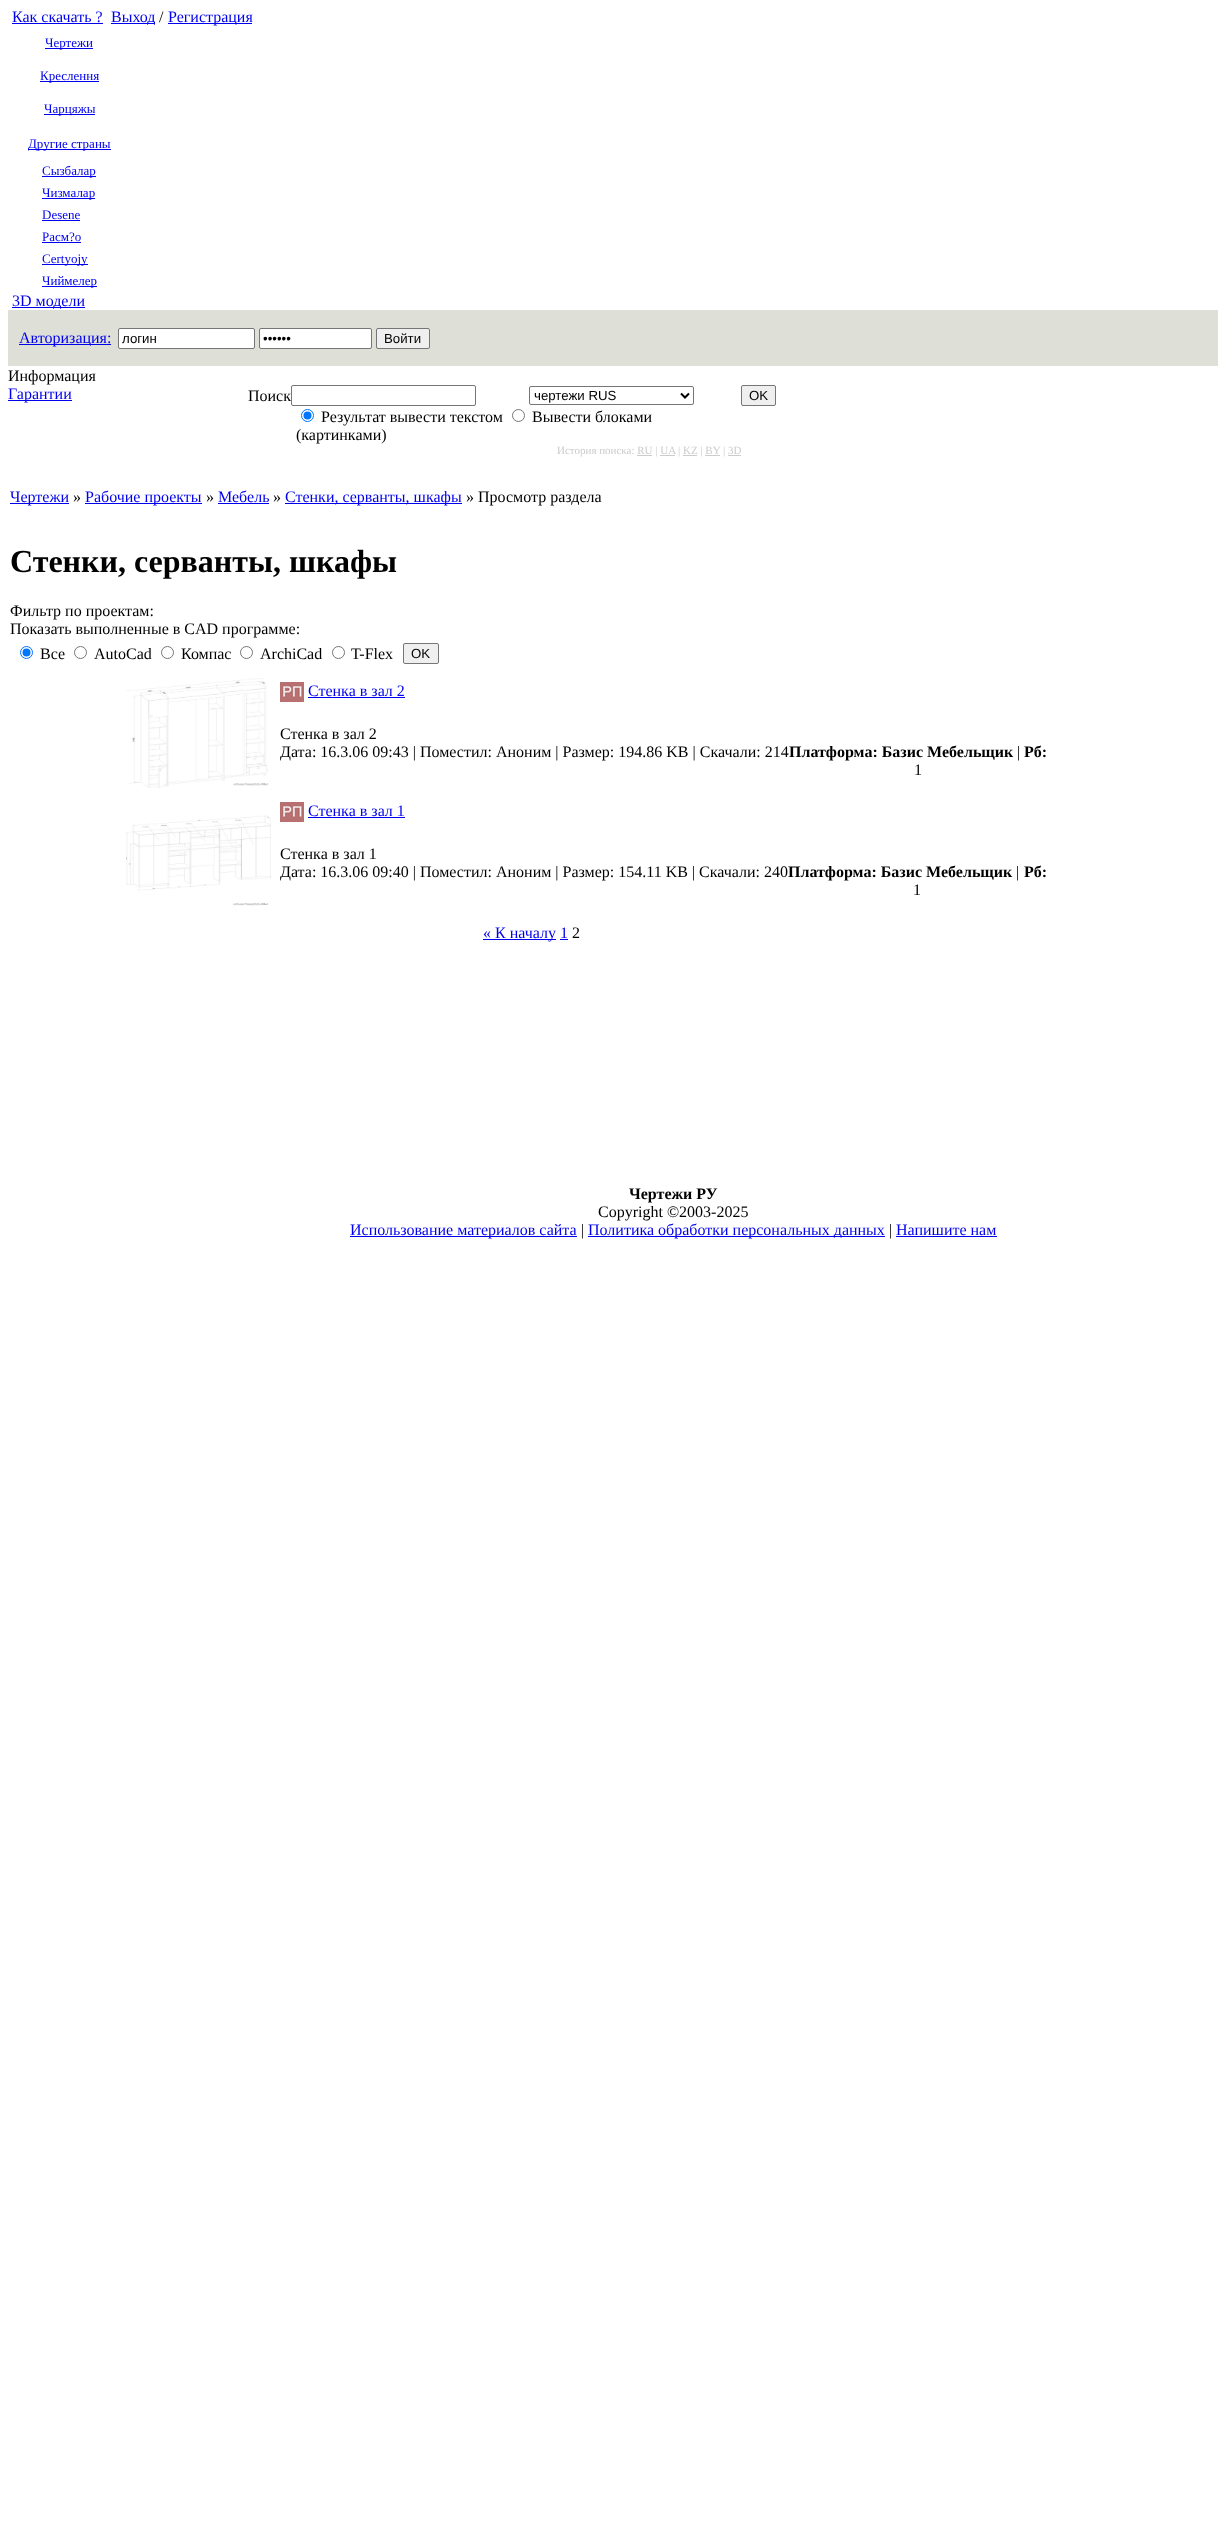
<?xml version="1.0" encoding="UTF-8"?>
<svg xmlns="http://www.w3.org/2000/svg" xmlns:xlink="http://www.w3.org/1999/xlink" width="1226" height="2544">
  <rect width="100%" height="100%" fill="#ffffff" />
  <rect x="12" y="23" width="91" height="1" fill="#0000ee" />
  <rect x="45" y="48" width="48" height="1" fill="#0000ee" />
  <rect x="40" y="81" width="59" height="1" fill="#0000ee" />
  <rect x="44" y="114" width="51" height="1" fill="#0000ee" />
  <rect x="28" y="149" width="83" height="1" fill="#0000ee" />
  <rect x="42" y="176" width="54" height="1" fill="#0000ee" />
  <rect x="42" y="198" width="53" height="1" fill="#0000ee" />
  <rect x="42" y="220" width="38" height="1" fill="#0000ee" />
  <rect x="42" y="242" width="39" height="1" fill="#0000ee" />
  <rect x="42" y="264" width="46" height="1" fill="#0000ee" />
  <rect x="42" y="286" width="55" height="1" fill="#0000ee" />
  <rect x="12" y="307" width="73" height="1" fill="#0000ee" />
  <rect x="111" y="23" width="44" height="1" fill="#0000ee" />
  <rect x="168" y="23" width="84" height="1" fill="#0000ee" />
  <rect x="8" y="310" width="1210" height="56" fill="#dedfd7" />
  <rect x="19" y="344" width="92" height="1" fill="#0000ee" />
  <rect x="118.5" y="328.5" width="136" height="20" rx="1.5" fill="#ffffff" stroke="#767676" />
  <rect x="259.5" y="328.5" width="112" height="20" rx="1.5" fill="#ffffff" stroke="#767676" />
  <rect x="376.5" y="328.5" width="53" height="20" rx="1.5" fill="#efefef" stroke="#767676" />
  <rect x="8" y="400" width="64" height="1" fill="#0000ee" />
  <rect x="529.5" y="386.5" width="164" height="18" rx="1.5" fill="none" stroke="#767676" />
  <path d="M 681 393.5 l 4 4 l 4 -4" fill="none" stroke="#000000" stroke-width="2" />
  <rect x="741.5" y="385.5" width="34" height="20" rx="1.5" fill="#efefef" stroke="#767676" />
  <circle cx="307.5" cy="415.5" r="6" fill="none" stroke="#0075ff" />
  <circle cx="307.5" cy="415.5" r="4" fill="#0075ff" />
  <circle cx="518.5" cy="415.5" r="6" fill="none" stroke="#767676" />
  <rect x="637" y="455" width="15" height="1" fill="#cccccc" />
  <rect x="660" y="455" width="15" height="1" fill="#cccccc" />
  <rect x="683" y="455" width="14" height="1" fill="#cccccc" />
  <rect x="705" y="455" width="15" height="1" fill="#cccccc" />
  <rect x="728" y="455" width="13" height="1" fill="#cccccc" />
  <rect x="10" y="503" width="59" height="1" fill="#0000ee" />
  <rect x="85" y="503" width="117" height="1" fill="#0000ee" />
  <rect x="218" y="503" width="51" height="1" fill="#0000ee" />
  <rect x="285" y="503" width="177" height="1" fill="#0000ee" />
  <circle cx="26.5" cy="652.5" r="6" fill="none" stroke="#0075ff" />
  <circle cx="26.5" cy="652.5" r="4" fill="#0075ff" />
  <circle cx="80.5" cy="652.5" r="6" fill="none" stroke="#767676" />
  <circle cx="167.5" cy="652.5" r="6" fill="none" stroke="#767676" />
  <circle cx="246.5" cy="652.5" r="6" fill="none" stroke="#767676" />
  <circle cx="338.5" cy="652.5" r="6" fill="none" stroke="#767676" />
  <rect x="403.5" y="643.5" width="35" height="20" rx="1.5" fill="#efefef" stroke="#767676" />
  <image x="126" y="678" width="143" height="110" xlink:href="image1.png" />
  <image x="280" y="682" width="24" height="20" xlink:href="image2.png" />
  <rect x="308" y="697" width="97" height="1" fill="#0000ee" />
  <image x="280" y="802" width="24" height="20" xlink:href="image2.png" />
  <rect x="308" y="817" width="97" height="1" fill="#0000ee" />
  <image x="126" y="815" width="145" height="91" xlink:href="image3.png" />
  <rect x="483" y="939" width="73" height="1" fill="#0000ee" />
  <rect x="560" y="939" width="8" height="1" fill="#0000ee" />
  <rect x="350" y="1236" width="227" height="1" fill="#0000ee" />
  <rect x="588" y="1236" width="297" height="1" fill="#0000ee" />
  <rect x="896" y="1236" width="101" height="1" fill="#0000ee" />
  <text x="12" y="22" style="font-family: Liberation Serif; font-size: 16px; fill: #0000ee">Как скачать ?</text>
  <text x="45" y="47" style="font-family: Liberation Serif; font-size: 13px; fill: #0000ee">Чертежи</text>
  <text x="40" y="80" style="font-family: Liberation Serif; font-size: 13px; fill: #0000ee">Креслення</text>
  <text x="44" y="113" style="font-family: Liberation Serif; font-size: 13px; fill: #0000ee">Чарцяжы</text>
  <text x="28" y="148" style="font-family: Liberation Serif; font-size: 13px; fill: #0000ee">Другие страны</text>
  <text x="42" y="175" style="font-family: Liberation Serif; font-size: 13px; fill: #0000ee">Сызбалар</text>
  <text x="42" y="197" style="font-family: Liberation Serif; font-size: 13px; fill: #0000ee">Чизмалар</text>
  <text x="42" y="219" style="font-family: Liberation Serif; font-size: 13px; fill: #0000ee">Desene</text>
  <text x="42" y="241" style="font-family: Liberation Serif; font-size: 13px; fill: #0000ee">Расм?о</text>
  <text x="42" y="263" style="font-family: Liberation Serif; font-size: 13px; fill: #0000ee">Certyojy</text>
  <text x="42" y="285" style="font-family: Liberation Serif; font-size: 13px; fill: #0000ee">Чиймелер</text>
  <text x="12" y="306" style="font-family: Liberation Serif; font-size: 16px; fill: #0000ee">3D модели</text>
  <text x="111" y="22" style="font-family: Liberation Serif; font-size: 16px; fill: #0000ee">Выход</text>
  <text x="159" y="22" style="font-family: Liberation Serif; font-size: 16px; fill: #000000">/</text>
  <text x="168" y="22" style="font-family: Liberation Serif; font-size: 16px; fill: #0000ee">Регистрация</text>
  <text x="19" y="343" style="font-family: Liberation Serif; font-size: 16px; fill: #0000ee">Авторизация:</text>
  <text x="122" y="343" style="font-family: Liberation Sans; font-size: 13.25px; fill: #000000">логин</text>
  <text x="263" y="343" style="font-family: Liberation Sans; font-size: 13.25px; fill: #000000">••••••</text>
  <text x="384" y="343" style="font-family: Liberation Sans; font-size: 13.25px; fill: #000000">Войти</text>
  <text x="8" y="381" style="font-family: Liberation Serif; font-size: 16px; fill: #000000">Информация</text>
  <text x="8" y="399" style="font-family: Liberation Serif; font-size: 16px; fill: #0000ee">Гарантии</text>
  <text x="248" y="401" style="font-family: Liberation Serif; font-size: 16px; fill: #000000">Поиск</text>
  <rect x="291.5" y="385.5" width="184" height="20" rx="1.5" fill="none" stroke="#767676" />
  <text x="534" y="400" style="font-family: Liberation Sans; font-size: 13.25px; fill: #000000">чертежи RUS</text>
  <text x="749" y="400" style="font-family: Liberation Sans; font-size: 13.25px; fill: #000000">OK</text>
  <text x="321" y="422" style="font-family: Liberation Serif; font-size: 16px; fill: #000000">Результат вывести текстом</text>
  <text x="532" y="422" style="font-family: Liberation Serif; font-size: 16px; fill: #000000">Вывести блоками</text>
  <text x="296" y="440" style="font-family: Liberation Serif; font-size: 16px; fill: #000000">(картинками)</text>
  <text x="557" y="454" style="font-family: Liberation Serif; font-size: 11px; fill: #cccccc">История поиска: RU | UA</text>
  <text x="678" y="454" style="font-family: Liberation Serif; font-size: 11px; fill: #cccccc">| KZ | BY</text>
  <text x="723" y="454" style="font-family: Liberation Serif; font-size: 11px; fill: #cccccc">| 3D</text>
  <text x="10" y="502" style="font-family: Liberation Serif; font-size: 16px; fill: #0000ee">Чертежи</text>
  <text x="73" y="502" style="font-family: Liberation Serif; font-size: 16px; fill: #000000">»</text>
  <text x="85" y="502" style="font-family: Liberation Serif; font-size: 16px; fill: #0000ee">Рабочие проекты</text>
  <text x="206" y="502" style="font-family: Liberation Serif; font-size: 16px; fill: #000000">»</text>
  <text x="218" y="502" style="font-family: Liberation Serif; font-size: 16px; fill: #0000ee">Мебель</text>
  <text x="273" y="502" style="font-family: Liberation Serif; font-size: 16px; fill: #000000">»</text>
  <text x="285" y="502" style="font-family: Liberation Serif; font-size: 16px; fill: #0000ee">Стенки, серванты, шкафы</text>
  <text x="466" y="502" style="font-family: Liberation Serif; font-size: 16px; fill: #000000">» Просмотр раздела</text>
  <text x="10" y="572" style="font-family: Liberation Serif; font-size: 32px; font-weight: bold; fill: #000000">Стенки, серванты, шкафы</text>
  <text x="10" y="616" style="font-family: Liberation Serif; font-size: 16px; fill: #000000">Фильтр по проектам:</text>
  <text x="10" y="634" style="font-family: Liberation Serif; font-size: 16px; fill: #000000">Показать выполненные в CAD программе:</text>
  <text x="40" y="659" style="font-family: Liberation Serif; font-size: 16px; fill: #000000">Все</text>
  <text x="94" y="659" style="font-family: Liberation Serif; font-size: 16px; fill: #000000">AutoCad</text>
  <text x="181" y="659" style="font-family: Liberation Serif; font-size: 16px; fill: #000000">Компас</text>
  <text x="260" y="659" style="font-family: Liberation Serif; font-size: 16px; fill: #000000">ArchiCad</text>
  <text x="351" y="659" style="font-family: Liberation Serif; font-size: 16px; fill: #000000">T-Flex</text>
  <text x="411" y="658" style="font-family: Liberation Sans; font-size: 13.25px; fill: #000000">OK</text>
  <text x="308" y="696" style="font-family: Liberation Serif; font-size: 16px; fill: #0000ee">Стенка в зал 2</text>
  <text x="280" y="739" style="font-family: Liberation Serif; font-size: 16px; fill: #000000">Стенка в зал 2</text>
  <text x="789" y="757" style="font-family: Liberation Serif; font-size: 16px; font-weight: bold; fill: #000000">Платформа: Базис Мебельщик</text>
  <text x="280" y="757" style="font-family: Liberation Serif; font-size: 16px; fill: #000000">Дата: 16.3.06 09:43 | Поместил: Аноним | Размер: 194.86 KB | Скачали: 214</text>
  <text x="1017" y="757" style="font-family: Liberation Serif; font-size: 16px; fill: #000000">|</text>
  <text x="1024" y="757" style="font-family: Liberation Serif; font-size: 16px; font-weight: bold; fill: #000000">Рб:</text>
  <text x="914" y="775" style="font-family: Liberation Serif; font-size: 16px; fill: #000000">1</text>
  <text x="308" y="816" style="font-family: Liberation Serif; font-size: 16px; fill: #0000ee">Стенка в зал 1</text>
  <text x="280" y="859" style="font-family: Liberation Serif; font-size: 16px; fill: #000000">Стенка в зал 1</text>
  <text x="280" y="877" style="font-family: Liberation Serif; font-size: 16px; fill: #000000">Дата: 16.3.06 09:40 | Поместил: Аноним | Размер: 154.11 KB | Скачали: 240</text>
  <text x="788" y="877" style="font-family: Liberation Serif; font-size: 16px; font-weight: bold; fill: #000000">Платформа: Базис Мебельщик</text>
  <text x="1016" y="877" style="font-family: Liberation Serif; font-size: 16px; fill: #000000">|</text>
  <text x="1024" y="877" style="font-family: Liberation Serif; font-size: 16px; font-weight: bold; fill: #000000">Рб:</text>
  <text x="913" y="895" style="font-family: Liberation Serif; font-size: 16px; fill: #000000">1</text>
  <text x="483" y="938" style="font-family: Liberation Serif; font-size: 16px; fill: #0000ee">« К началу 1</text>
  <text x="572" y="938" style="font-family: Liberation Serif; font-size: 16px; fill: #000000">2</text>
  <text x="629" y="1199" style="font-family: Liberation Serif; font-size: 16px; font-weight: bold; fill: #000000">Чертежи РУ</text>
  <text x="598" y="1217" style="font-family: Liberation Serif; font-size: 16px; fill: #000000">Copyright ©2003-2025</text>
  <text x="350" y="1235" style="font-family: Liberation Serif; font-size: 16px; fill: #0000ee">Использование материалов сайта</text>
  <text x="581" y="1235" style="font-family: Liberation Serif; font-size: 16px; fill: #000000">|</text>
  <text x="588" y="1235" style="font-family: Liberation Serif; font-size: 16px; fill: #0000ee">Политика обработки персональных данных</text>
  <text x="889" y="1235" style="font-family: Liberation Serif; font-size: 16px; fill: #000000">|</text>
  <text x="896" y="1235" style="font-family: Liberation Serif; font-size: 16px; fill: #0000ee">Напишите нам</text>
</svg>
